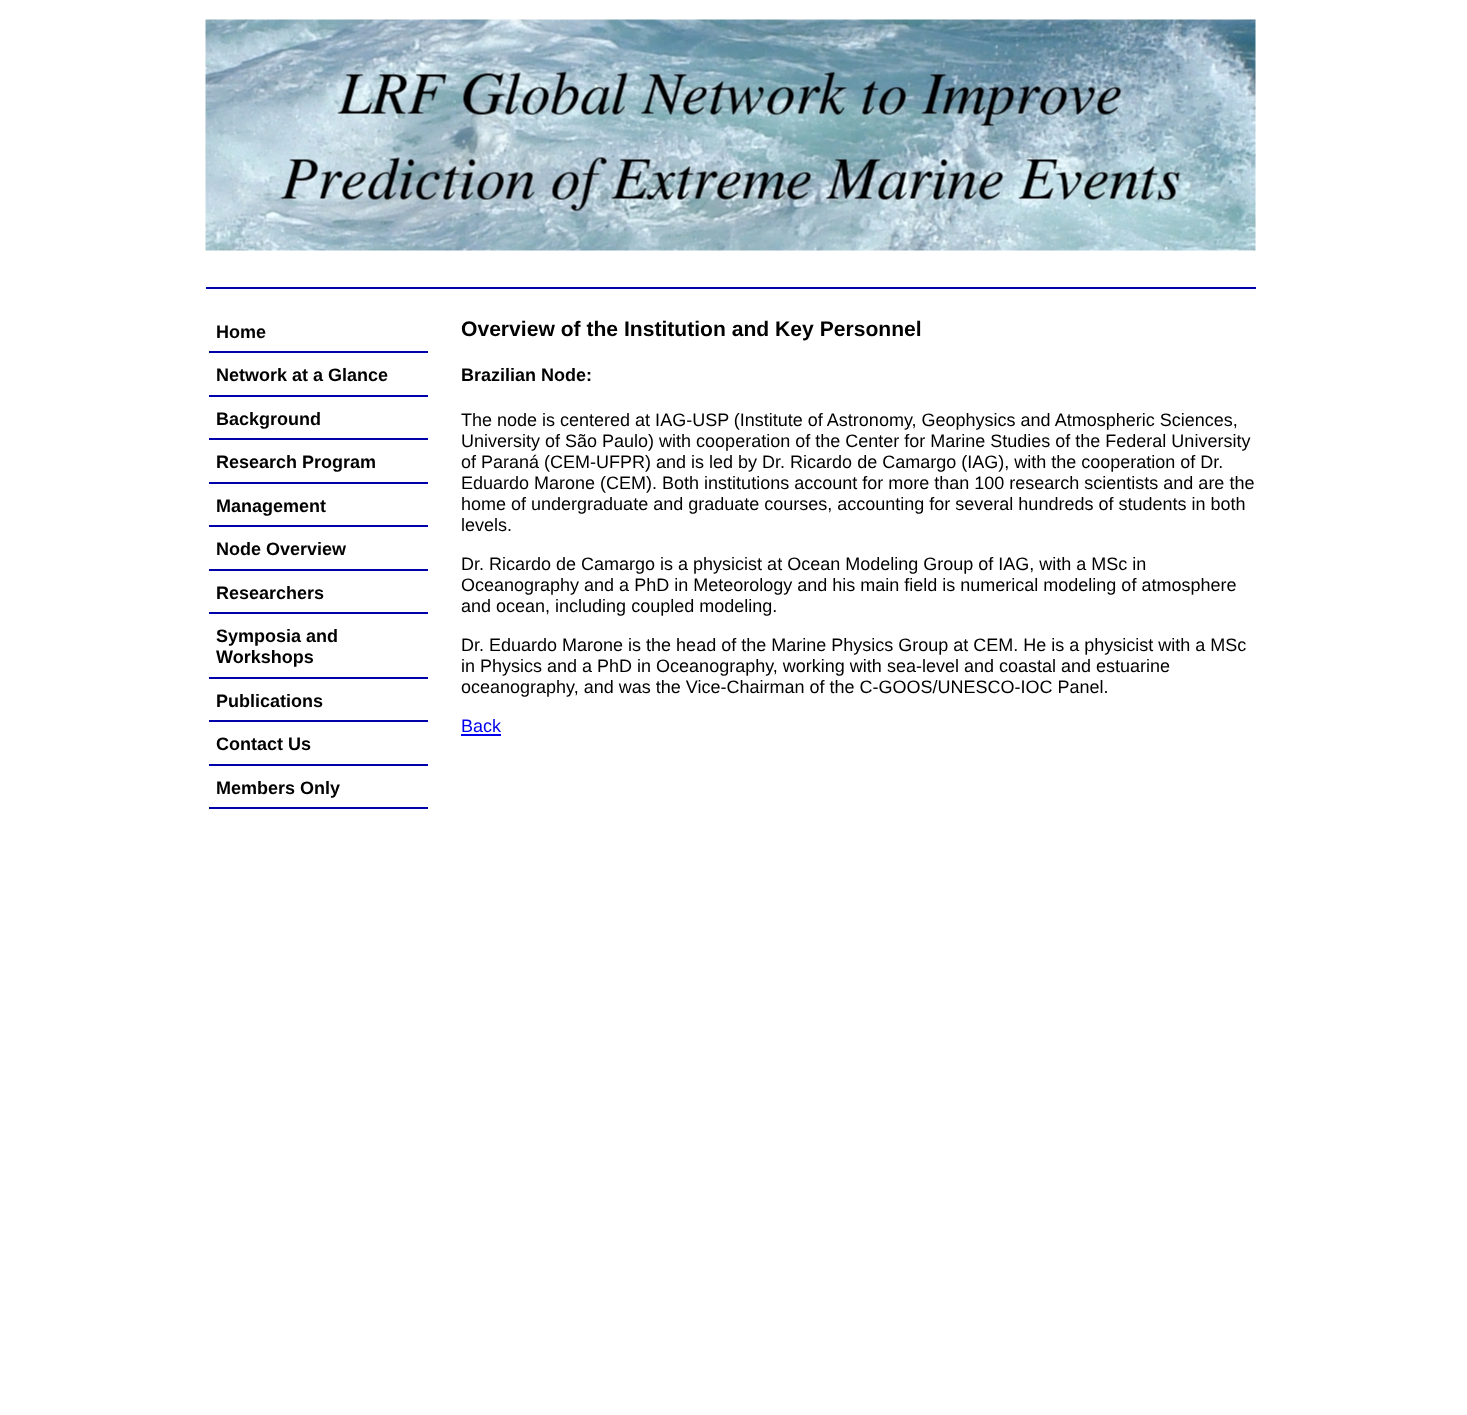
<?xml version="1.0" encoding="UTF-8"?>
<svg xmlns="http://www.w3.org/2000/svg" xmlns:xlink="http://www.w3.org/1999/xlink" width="1467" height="1415">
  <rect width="100%" height="100%" fill="#ffffff" />
  <rect x="206" y="287" width="1050" height="2" fill="#0000aa" />
  <image x="205" y="19" width="1051" height="232" xlink:href="image1.png" />
  <rect x="209" y="351" width="219" height="2" fill="#0000aa" />
  <rect x="209" y="395" width="219" height="2" fill="#0000aa" />
  <rect x="209" y="438" width="219" height="2" fill="#0000aa" />
  <rect x="209" y="482" width="219" height="2" fill="#0000aa" />
  <rect x="209" y="525" width="219" height="2" fill="#0000aa" />
  <rect x="209" y="569" width="219" height="2" fill="#0000aa" />
  <rect x="209" y="612" width="219" height="2" fill="#0000aa" />
  <rect x="209" y="677" width="219" height="2" fill="#0000aa" />
  <rect x="209" y="720" width="219" height="2" fill="#0000aa" />
  <rect x="209" y="764" width="219" height="2" fill="#0000aa" />
  <rect x="209" y="807" width="219" height="2" fill="#0000aa" />
  <rect x="461" y="734" width="40" height="2" fill="#0000ee" />
  <text x="216" y="338" style="font-family: Liberation Sans; font-size: 18px; font-weight: bold; fill: #000000">Home</text>
  <text x="216" y="381" style="font-family: Liberation Sans; font-size: 18px; font-weight: bold; fill: #000000">Network at a Glance</text>
  <text x="216" y="425" style="font-family: Liberation Sans; font-size: 18px; font-weight: bold; fill: #000000">Background</text>
  <text x="216" y="468" style="font-family: Liberation Sans; font-size: 18px; font-weight: bold; fill: #000000">Research Program</text>
  <text x="216" y="512" style="font-family: Liberation Sans; font-size: 18px; font-weight: bold; fill: #000000">Management</text>
  <text x="216" y="555" style="font-family: Liberation Sans; font-size: 18px; font-weight: bold; fill: #000000">Node Overview</text>
  <text x="216" y="599" style="font-family: Liberation Sans; font-size: 18px; font-weight: bold; fill: #000000">Researchers</text>
  <text x="216" y="642" style="font-family: Liberation Sans; font-size: 18px; font-weight: bold; fill: #000000">Symposia and</text>
  <text x="216" y="663" style="font-family: Liberation Sans; font-size: 18px; font-weight: bold; fill: #000000">Workshops</text>
  <text x="216" y="707" style="font-family: Liberation Sans; font-size: 18px; font-weight: bold; fill: #000000">Publications</text>
  <text x="216" y="750" style="font-family: Liberation Sans; font-size: 18px; font-weight: bold; fill: #000000">Contact Us</text>
  <text x="216" y="794" style="font-family: Liberation Sans; font-size: 18px; font-weight: bold; fill: #000000">Members Only</text>
  <text x="461" y="336" style="font-family: Liberation Sans; font-size: 21.1px; font-weight: bold; fill: #000000">Overview of the Institution and Key Personnel</text>
  <text x="461" y="381" style="font-family: Liberation Sans; font-size: 18px; font-weight: bold; fill: #000000">Brazilian Node:</text>
  <text x="461" y="426" style="font-family: Liberation Sans; font-size: 18px; fill: #000000">The node is centered at IAG-USP (Institute of Astronomy, Geophysics and Atmospheric Sciences,</text>
  <text x="461" y="447" style="font-family: Liberation Sans; font-size: 18px; fill: #000000">University of São Paulo) with cooperation of the Center for Marine Studies of the Federal University</text>
  <text x="461" y="468" style="font-family: Liberation Sans; font-size: 18px; fill: #000000">of Paraná (CEM-UFPR) and is led by Dr. Ricardo de Camargo (IAG), with the cooperation of Dr.</text>
  <text x="461" y="489" style="font-family: Liberation Sans; font-size: 18px; fill: #000000">Eduardo Marone (CEM). Both institutions account for more than 100 research scientists and are the</text>
  <text x="461" y="510" style="font-family: Liberation Sans; font-size: 18px; fill: #000000">home of undergraduate and graduate courses, accounting for several hundreds of students in both</text>
  <text x="461" y="531" style="font-family: Liberation Sans; font-size: 18px; fill: #000000">levels.</text>
  <text x="461" y="570" style="font-family: Liberation Sans; font-size: 18px; fill: #000000">Dr. Ricardo de Camargo is a physicist at Ocean Modeling Group of IAG, with a MSc in</text>
  <text x="461" y="591" style="font-family: Liberation Sans; font-size: 18px; fill: #000000">Oceanography and a PhD in Meteorology and his main field is numerical modeling of atmosphere</text>
  <text x="461" y="612" style="font-family: Liberation Sans; font-size: 18px; fill: #000000">and ocean, including coupled modeling.</text>
  <text x="461" y="651" style="font-family: Liberation Sans; font-size: 18px; fill: #000000">Dr. Eduardo Marone is the head of the Marine Physics Group at CEM. He is a physicist with a MSc</text>
  <text x="461" y="672" style="font-family: Liberation Sans; font-size: 18px; fill: #000000">in Physics and a PhD in Oceanography, working with sea-level and coastal and estuarine</text>
  <text x="461" y="693" style="font-family: Liberation Sans; font-size: 18px; fill: #000000">oceanography, and was the Vice-Chairman of the C-GOOS/UNESCO-IOC Panel.</text>
  <text x="461" y="732" style="font-family: Liberation Sans; font-size: 18px; fill: #0000ee">Back</text>
</svg>
